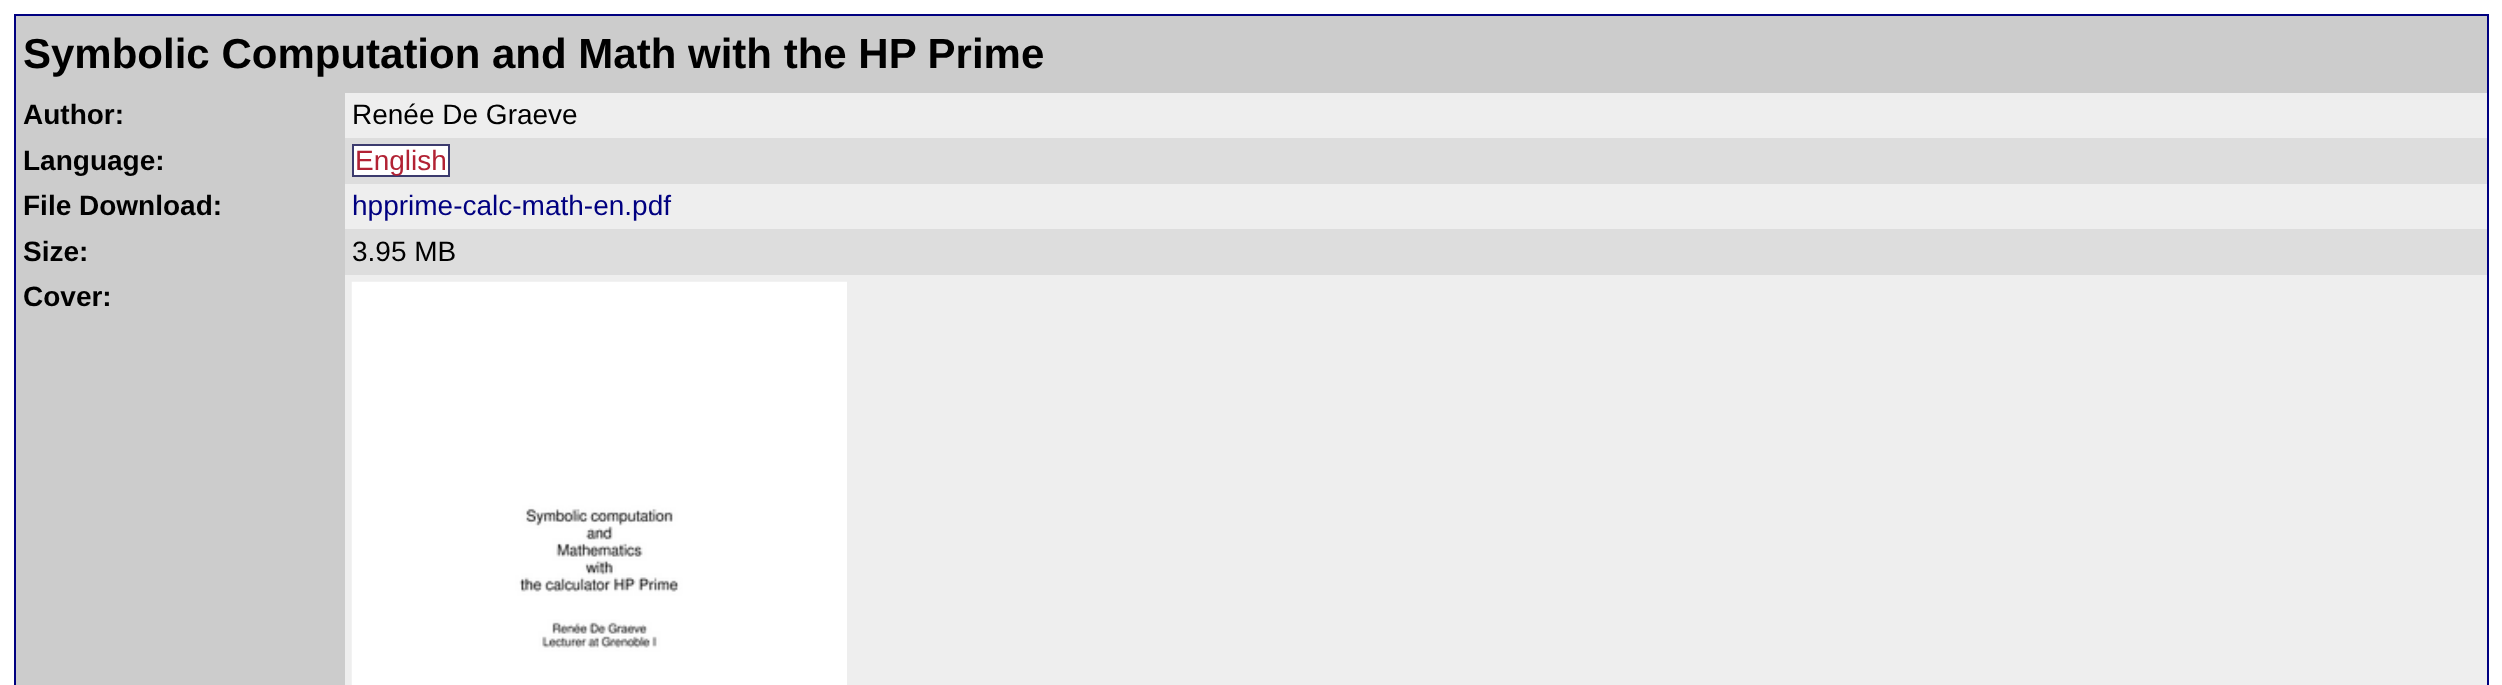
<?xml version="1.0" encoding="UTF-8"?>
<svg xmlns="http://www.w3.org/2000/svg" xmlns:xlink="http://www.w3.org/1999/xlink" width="2502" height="685">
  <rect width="100%" height="100%" fill="#ffffff" />
  <rect x="14" y="14" width="2475" height="671" fill="#000080" />
  <rect x="345" y="93" width="2142" height="592" fill="#eeeeee" />
  <rect x="16" y="16" width="2471" height="77" fill="#cccccc" />
  <rect x="16" y="93" width="329" height="592" fill="#cccccc" />
  <rect x="345" y="138" width="2142" height="46" fill="#dddddd" />
  <rect x="353" y="145" width="96" height="31" fill="#ffffff" stroke="#3c3b6e" stroke-width="2" />
  <rect x="345" y="229" width="2142" height="46" fill="#dddddd" />
  <image x="351" y="281" width="496" height="404" xlink:href="image1.png" />
  <text x="23" y="68" style="font-family: Liberation Sans; font-size: 42px; font-weight: bold; fill: #000000">Symbolic Computation and Math with the HP Prime</text>
  <text x="23" y="124" style="font-family: Liberation Sans; font-size: 28px; font-weight: bold; fill: #000000">Author:</text>
  <text x="352" y="124" style="font-family: Liberation Sans; font-size: 28px; fill: #000000">Renée De Graeve</text>
  <text x="23" y="170" style="font-family: Liberation Sans; font-size: 28px; font-weight: bold; fill: #000000">Language:</text>
  <text x="355" y="170" style="font-family: Liberation Sans; font-size: 28px; fill: #b22234">English</text>
  <text x="23" y="215" style="font-family: Liberation Sans; font-size: 28px; font-weight: bold; fill: #000000">File Download:</text>
  <text x="352" y="215" style="font-family: Liberation Sans; font-size: 28px; fill: #000080">hpprime-calc-math-en.pdf</text>
  <text x="23" y="261" style="font-family: Liberation Sans; font-size: 28px; font-weight: bold; fill: #000000">Size:</text>
  <text x="352" y="261" style="font-family: Liberation Sans; font-size: 28px; fill: #000000">3.95 MB</text>
  <text x="23" y="306" style="font-family: Liberation Sans; font-size: 28px; font-weight: bold; fill: #000000">Cover:</text>
</svg>
